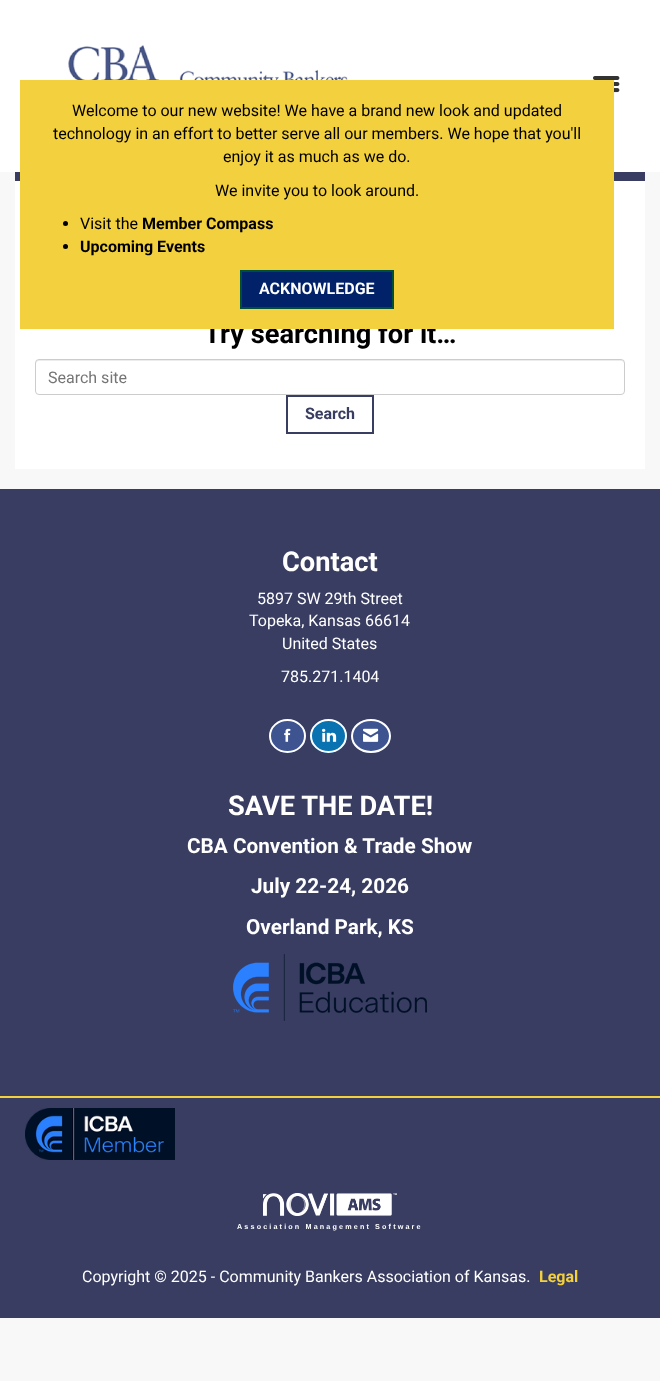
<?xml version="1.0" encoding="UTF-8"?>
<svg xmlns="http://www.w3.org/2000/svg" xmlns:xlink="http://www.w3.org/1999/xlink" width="660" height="1381">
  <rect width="100%" height="100%" fill="#f8f8f8" />
  <rect width="660" height="172" fill="#ffffff" />
  <image x="51" y="45" width="297" height="35" xlink:href="image1.png" />
  <image x="593" y="76" width="27" height="17" xlink:href="image2.png" />
  <rect x="15" y="172" width="630" height="9" fill="#383d61" />
  <rect x="15" y="181" width="630" height="288" fill="#ffffff" />
  <path d="M 39 361 h 582 c 2 0 3 1 3 3 v -1 c 0 -2 -1 -3 -3 -3 h -582 c -2 0 -3 1 -3 3 v 1 c 0 -2 1 -3 3 -3 z" fill="#ececec" />
  <rect x="35.5" y="359.5" width="589" height="35" rx="3.5" fill="none" stroke="#cccccc" />
  <rect x="287" y="396" width="86" height="37" fill="none" stroke="#383d61" stroke-width="2" />
  <rect y="489" width="660" height="607" fill="#383d61" />
  <ellipse cx="287.5" cy="736" rx="18.5" ry="17" fill="#3e5491" />
  <path d="M 287.5 720 c 9.5 0 17.5 7 17.5 16 c 0 9 -8 16 -17.5 16 c -9.5 0 -17.5 -7 -17.5 -16 c 0 -9 8 -16 17.5 -16 z" fill="none" stroke="#ffffff" stroke-width="2" />
  <image x="284" y="728" width="7" height="14" xlink:href="image3.png" />
  <ellipse cx="328.5" cy="736" rx="18.5" ry="17" fill="#0972b1" />
  <path d="M 328.5 720 c 9.5 0 17.5 7 17.5 16 c 0 9 -8 16 -17.5 16 c -9.5 0 -17.5 -7 -17.5 -16 c 0 -9 8 -16 17.5 -16 z" fill="none" stroke="#ffffff" stroke-width="2" />
  <image x="322" y="728" width="15" height="14" xlink:href="image4.png" />
  <ellipse cx="371" cy="736" rx="20" ry="17" fill="#3e5491" />
  <path d="M 371 720 c 10.5 0 19 7 19 16 c 0 9 -8.5 16 -19 16 c -10.5 0 -19 -7 -19 -16 c 0 -9 8.5 -16 19 -16 z" fill="none" stroke="#ffffff" stroke-width="2" />
  <image x="363" y="728" width="16" height="14" xlink:href="image5.png" />
  <image x="233" y="954" width="194" height="67" xlink:href="image6.png" />
  <rect y="1098" width="660" height="220" fill="#383d61" />
  <rect y="1096" width="660" height="2" fill="#f3d03e" />
  <image x="25" y="1108" width="150" height="52" xlink:href="image7.png" />
  <image x="263" y="1193" width="134" height="23" xlink:href="image8.png" />
  <text x="204" y="343" style="font-family: Roboto; font-size: 27.25px; font-weight: bold; fill: #000000">Try searching for it…</text>
  <rect x="20" y="80" width="594" height="249" fill="#f3d03e" />
  <rect x="241" y="271" width="152" height="37" fill="#012169" stroke="#004f39" stroke-width="2" />
  <text x="259" y="294" style="font-family: Roboto; font-size: 16px; font-weight: bold; fill: #ffffff">ACKNOWLEDGE</text>
  <text x="80" y="252" style="font-family: Roboto; font-size: 16px; font-weight: bold; fill: #000000">Upcoming Events</text>
  <circle cx="65.5" cy="246.5" r="2.5" fill="#000000" />
  <text x="142" y="229" style="font-family: Roboto; font-size: 16px; font-weight: bold; fill: #000000">Member Compass</text>
  <text x="80" y="229" style="font-family: Roboto; font-size: 16px; fill: #000000">Visit the</text>
  <circle cx="65.5" cy="223.5" r="2.5" fill="#000000" />
  <text x="215" y="196" style="font-family: Roboto; font-size: 16px; fill: #000000">We invite you to look around.</text>
  <text x="223" y="162" style="font-family: Roboto; font-size: 16px; fill: #000000">enjoy it as much as we do.</text>
  <text x="53" y="139" style="font-family: Roboto; font-size: 16px; fill: #000000">technology in an effort to better serve all our members. We hope that you'll</text>
  <text x="72" y="116" style="font-family: Roboto; font-size: 16px; fill: #000000">Welcome to our new website! We have a brand new look and updated</text>
  <text x="48" y="383" style="font-family: Roboto; font-size: 16px; fill: #757575">Search site</text>
  <text x="305" y="419" style="font-family: Roboto; font-size: 16px; font-weight: bold; fill: #383d61">Search</text>
  <text x="282" y="571" style="font-family: Roboto; font-size: 27.25px; font-weight: bold; fill: #ffffff">Contact</text>
  <text x="257" y="604" style="font-family: Roboto; font-size: 16px; fill: #ffffff">5897 SW 29th Street</text>
  <text x="249" y="626" style="font-family: Roboto; font-size: 16px; fill: #ffffff">Topeka, Kansas 66614</text>
  <text x="282" y="649" style="font-family: Roboto; font-size: 16px; fill: #ffffff">United States</text>
  <text x="281" y="682" style="font-family: Roboto; font-size: 16px; fill: #ffffff">785.271.1404</text>
  <text x="228" y="815" style="font-family: Roboto; font-size: 27.25px; font-weight: bold; fill: #ffffff">SAVE THE DATE!</text>
  <text x="187" y="853" style="font-family: Roboto; font-size: 20.75px; font-weight: bold; fill: #ffffff">CBA Convention &amp; Trade Show</text>
  <text x="251" y="893" style="font-family: Roboto; font-size: 20.75px; font-weight: bold; fill: #ffffff">July 22-24, 2026</text>
  <text x="246" y="934" style="font-family: Roboto; font-size: 20.75px; font-weight: bold; fill: #ffffff">Overland Park, KS</text>
  <text x="237" y="1229" style="font-family: Liberation Sans; font-size: 7.2px; font-weight: bold; letter-spacing: 2.15px; fill: #ffffff">Association Management Software</text>
  <text x="82" y="1282" style="font-family: Roboto; font-size: 16px; fill: #ffffff">Copyright © 2025 - Community Bankers Association of Kansas.</text>
  <text x="539" y="1282" style="font-family: Roboto; font-size: 16px; font-weight: bold; fill: #f3d03e">Legal</text>
</svg>
